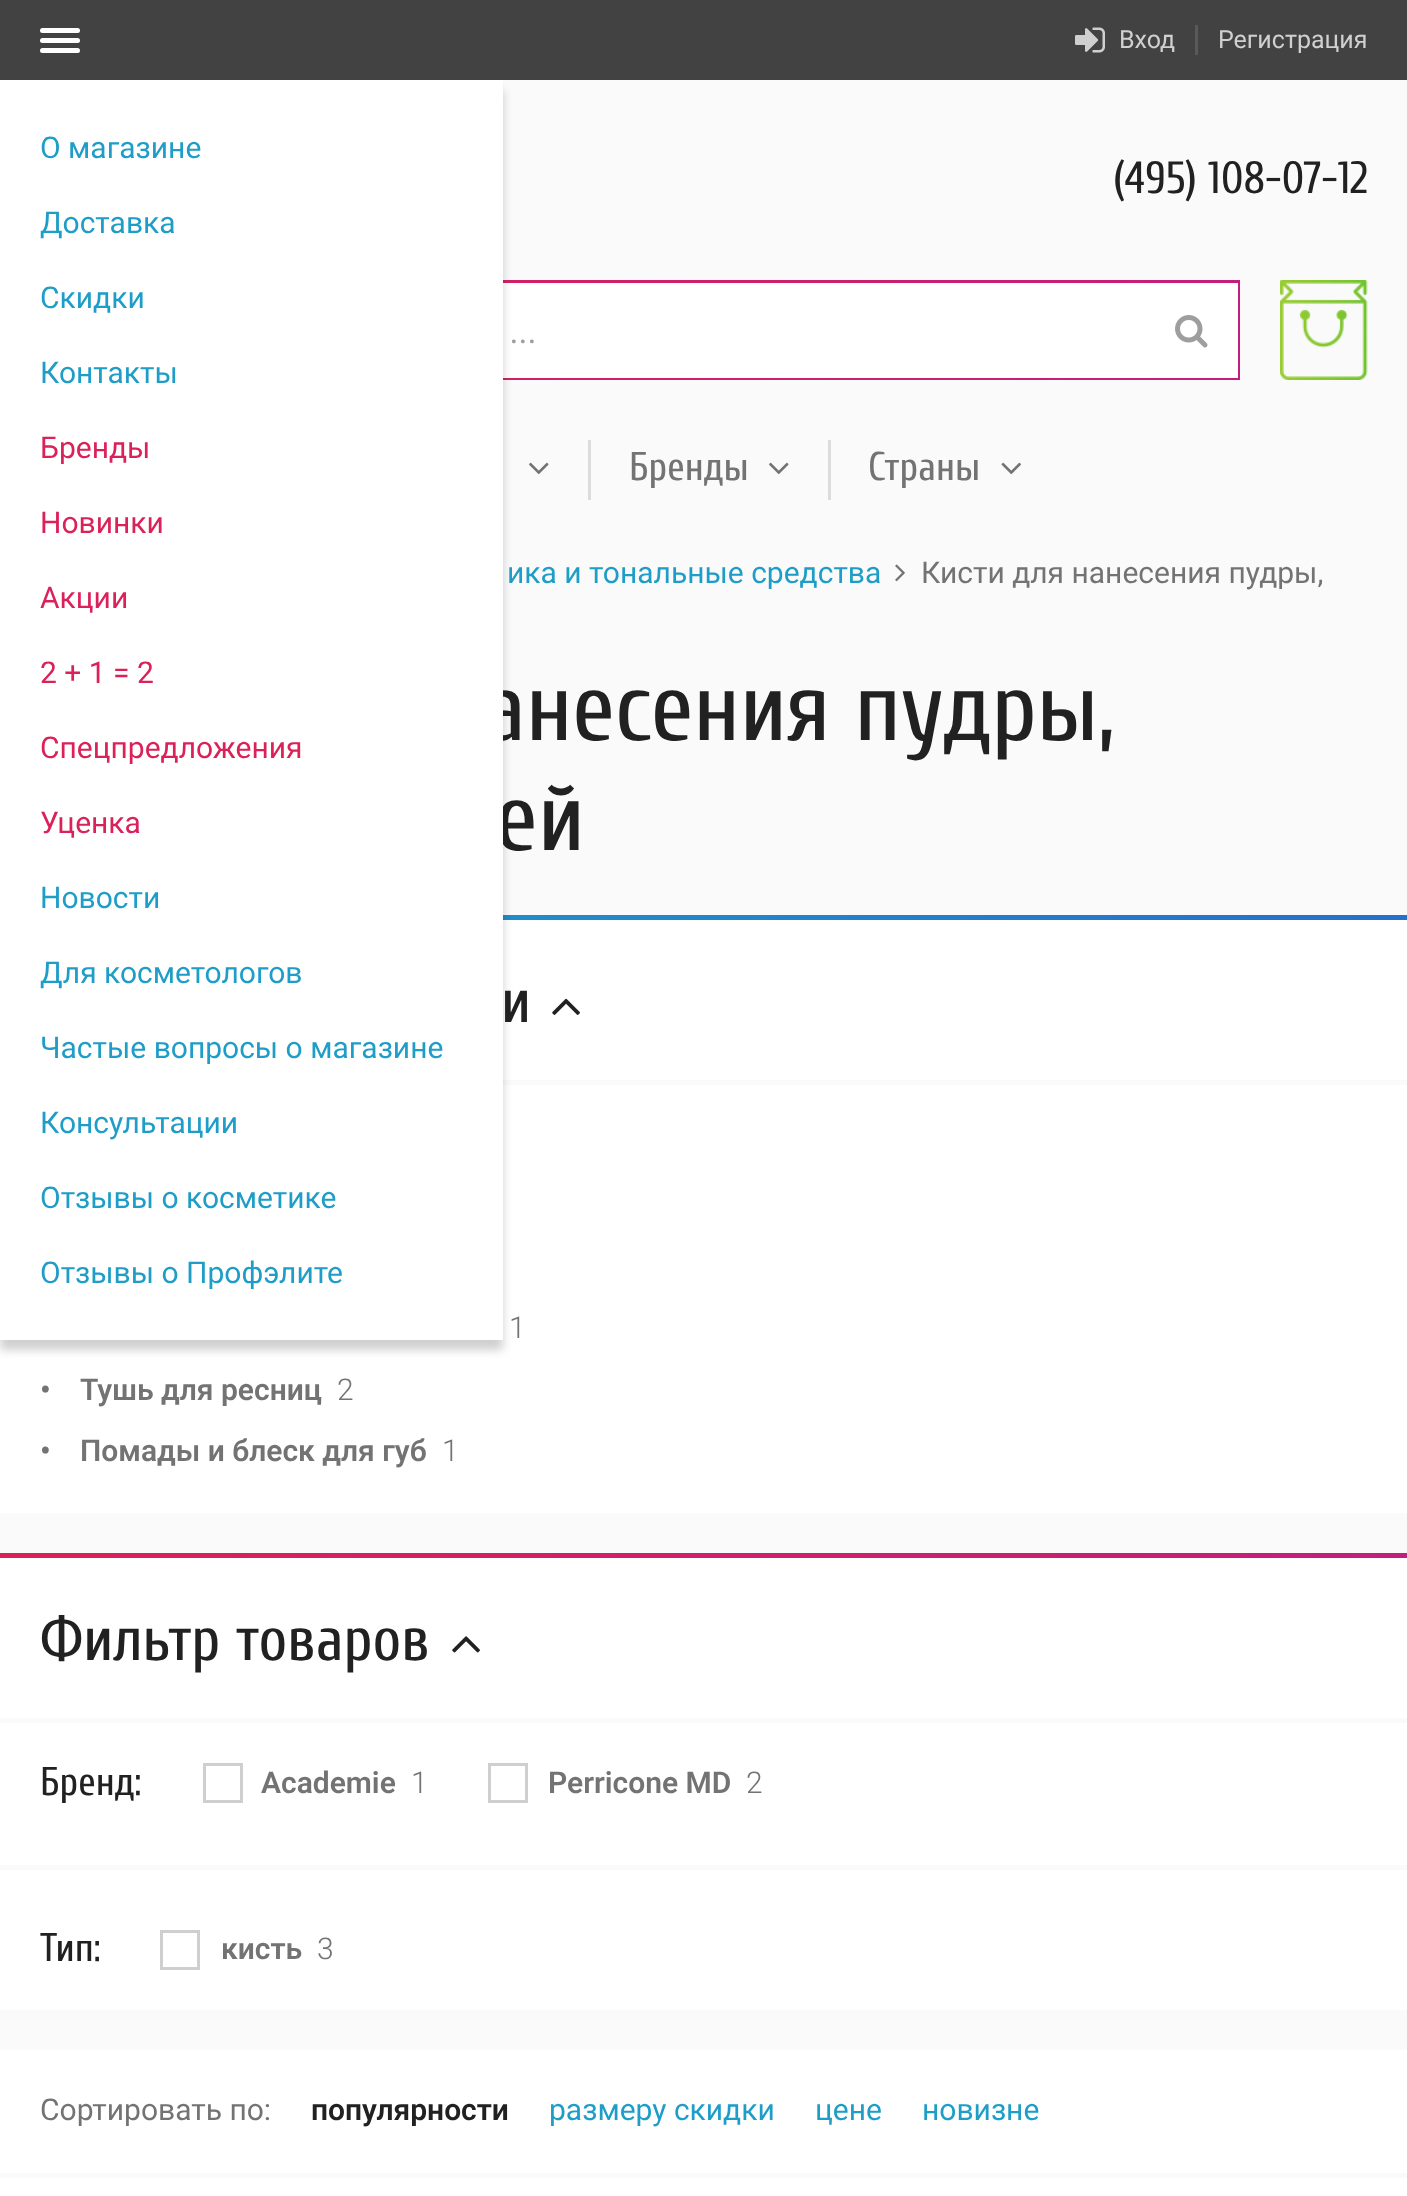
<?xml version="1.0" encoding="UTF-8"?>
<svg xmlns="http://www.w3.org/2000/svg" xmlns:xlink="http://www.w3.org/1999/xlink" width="1407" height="2196">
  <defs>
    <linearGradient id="g1" gradientUnits="userSpaceOnUse" x1="40" y1="330" x2="1240" y2="330"><stop offset="0" stop-color="#db2159" /><stop offset="1" stop-color="#c41e7c" /></linearGradient>
    <linearGradient id="g2" gradientUnits="userSpaceOnUse" x1="0" y1="918" x2="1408" y2="918"><stop offset="0" stop-color="#1d9dc7" /><stop offset="1" stop-color="#266fcc" /></linearGradient>
    <linearGradient id="g3" gradientUnits="userSpaceOnUse" x1="0" y1="1555" x2="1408" y2="1555"><stop offset="0" stop-color="#db2159" /><stop offset="1" stop-color="#c41e7c" /></linearGradient>
  </defs>
  <rect width="100%" height="100%" fill="#fafafa" />
  <rect width="1407" height="80" fill="#424242" />
  <image x="1075" y="27" width="30" height="26" xlink:href="image1.png" />
  <rect x="1195" y="25" width="3" height="30" fill="#595959" />
  <rect x="40" y="28" width="40" height="5" rx="2.5" fill="#ffffff" />
  <rect x="40" y="48" width="40" height="5" rx="2.5" fill="#ffffff" />
  <rect x="40" y="38" width="40" height="5" rx="2.5" fill="#ffffff" />
  <rect x="503" y="280" width="737" height="100" fill="url(#g1)" />
  <rect x="503" y="283" width="735" height="95" fill="#ffffff" />
  <rect y="920" width="1407" height="593" fill="#ffffff" />
  <rect x="503" y="915" width="904" height="5" fill="url(#g2)" />
  <rect x="503" y="1080" width="904" height="5" fill="#fafafa" />
  <rect y="90" width="503" height="1260" fill="#000000" fill-opacity="0.19" filter="blur(5px)" />
  <image x="1175" y="315" width="33" height="33" xlink:href="image2.png" />
  <image x="1280" y="280" width="88" height="100" xlink:href="image3.png" />
  <image x="529" y="462" width="20" height="12" xlink:href="image4.png" />
  <rect x="588" y="440" width="3" height="60" fill="#dcdcdc" />
  <image x="769" y="462" width="20" height="12" xlink:href="image4.png" />
  <rect x="828" y="440" width="3" height="60" fill="#dcdcdc" />
  <image x="1001" y="462" width="20" height="12" xlink:href="image5.png" />
  <image x="895" y="564" width="10" height="18" xlink:href="image6.png" />
  <image x="552" y="998" width="28" height="17" xlink:href="image7.png" />
  <rect y="1558" width="1407" height="452" fill="#ffffff" />
  <rect y="1553" width="1407" height="5" fill="url(#g3)" />
  <rect y="1718" width="1407" height="5" fill="#fafafa" />
  <image x="452" y="1636" width="28" height="17" xlink:href="image8.png" />
  <rect x="204.5" y="1764.5" width="37" height="37" fill="none" stroke="#cfcfcf" stroke-width="3" />
  <rect x="489.5" y="1764.5" width="37" height="37" fill="none" stroke="#cfcfcf" stroke-width="3" />
  <rect y="1865" width="1407" height="5" fill="#fafafa" />
  <rect x="161.5" y="1931.5" width="37" height="37" fill="none" stroke="#cfcfcf" stroke-width="3" />
  <rect y="2050" width="1407" height="146" fill="#ffffff" />
  <rect y="2173" width="1407" height="5" fill="#fafafa" />
  <text x="1119" y="48" style="font-family: Roboto; font-size: 25px; fill: #d0d0d0">Вход</text>
  <text x="1218" y="48" style="font-family: Roboto; font-size: 25px; fill: #d0d0d0">Регистрация</text>
  <text x="1113" y="193" style="font-family: Cuprum; font-size: 45px; fill: #212121">(495) 108-07-12</text>
  <text x="511" y="343" style="font-family: Roboto; font-size: 35px; font-style: italic; fill: #9e9e9e">...</text>
  <text x="629" y="480" style="font-family: Cuprum; font-size: 40px; fill: #737373">Бренды</text>
  <text x="868" y="480" style="font-family: Cuprum; font-size: 40px; fill: #737373">Страны</text>
  <text x="507" y="583" style="font-family: Roboto; font-size: 30px; fill: #1d9dc7">ика и тональные средства</text>
  <text x="921" y="583" style="font-family: Roboto; font-size: 30px; fill: #737373">Кисти для нанесения пудры,</text>
  <text x="482" y="740" style="font-family: Cuprum; font-size: 97.5px; fill: #212121">анесения пудры,</text>
  <text x="495" y="850" style="font-family: Cuprum; font-size: 97.5px; fill: #212121">ей</text>
  <rect y="80" width="503" height="1260" fill="#ffffff" />
  <text x="40" y="1283" style="font-family: Roboto; font-size: 30px; fill: #1d9dc7">Отзывы о Профэлите</text>
  <text x="40" y="1208" style="font-family: Roboto; font-size: 30px; fill: #1d9dc7">Отзывы о косметике</text>
  <text x="40" y="1133" style="font-family: Roboto; font-size: 30px; fill: #1d9dc7">Консультации</text>
  <text x="40" y="1058" style="font-family: Roboto; font-size: 30px; fill: #1d9dc7">Частые вопросы о магазине</text>
  <text x="40" y="983" style="font-family: Roboto; font-size: 30px; fill: #1d9dc7">Для косметологов</text>
  <text x="40" y="908" style="font-family: Roboto; font-size: 30px; fill: #1d9dc7">Новости</text>
  <text x="40" y="833" style="font-family: Roboto; font-size: 30px; fill: #db2159">Уценка</text>
  <text x="40" y="758" style="font-family: Roboto; font-size: 30px; fill: #db2159">Спецпредложения</text>
  <text x="40" y="683" style="font-family: Roboto; font-size: 30px; fill: #db2159">2 + 1 = 2</text>
  <text x="40" y="608" style="font-family: Roboto; font-size: 30px; fill: #db2159">Акции</text>
  <text x="40" y="533" style="font-family: Roboto; font-size: 30px; fill: #db2159">Новинки</text>
  <text x="40" y="458" style="font-family: Roboto; font-size: 30px; fill: #db2159">Бренды</text>
  <text x="40" y="383" style="font-family: Roboto; font-size: 30px; fill: #1d9dc7">Контакты</text>
  <text x="40" y="308" style="font-family: Roboto; font-size: 30px; fill: #1d9dc7">Скидки</text>
  <text x="40" y="233" style="font-family: Roboto; font-size: 30px; fill: #1d9dc7">Доставка</text>
  <text x="40" y="158" style="font-family: Roboto; font-size: 30px; fill: #1d9dc7">О магазине</text>
  <text x="501" y="1022" style="font-family: Cuprum; font-size: 62.5px; fill: #212121">и</text>
  <text x="509" y="1338" style="font-family: Roboto; font-size: 30px; font-weight: 300; fill: #737373">1</text>
  <text x="40" y="1400" style="font-family: Roboto; font-size: 30px; font-weight: 600; fill: #737373">•</text>
  <text x="80" y="1400" style="font-family: Roboto; font-size: 30px; font-weight: 600; fill: #737373">Тушь для ресниц</text>
  <text x="337" y="1400" style="font-family: Roboto; font-size: 30px; font-weight: 300; fill: #737373">2</text>
  <text x="40" y="1461" style="font-family: Roboto; font-size: 30px; font-weight: 600; fill: #737373">•</text>
  <text x="80" y="1461" style="font-family: Roboto; font-size: 30px; font-weight: 600; fill: #737373">Помады и блеск для губ</text>
  <text x="442" y="1461" style="font-family: Roboto; font-size: 30px; font-weight: 300; fill: #737373">1</text>
  <text x="40" y="1660" style="font-family: Cuprum; font-size: 62.5px; fill: #212121">Фильтр товаров</text>
  <text x="40" y="1795" style="font-family: Cuprum; font-size: 40px; fill: #212121">Бренд:</text>
  <text x="261" y="1793" style="font-family: Roboto; font-size: 30px; font-weight: 600; fill: #737373">Academie</text>
  <text x="411" y="1793" style="font-family: Roboto; font-size: 30px; font-weight: 300; fill: #737373">1</text>
  <text x="548" y="1793" style="font-family: Roboto; font-size: 30px; font-weight: 600; fill: #737373">Perricone MD</text>
  <text x="746" y="1793" style="font-family: Roboto; font-size: 30px; font-weight: 300; fill: #737373">2</text>
  <text x="40" y="1961" style="font-family: Cuprum; font-size: 40px; fill: #212121">Тип:</text>
  <text x="221" y="1959" style="font-family: Roboto; font-size: 30px; font-weight: 600; fill: #737373">кисть</text>
  <text x="317" y="1959" style="font-family: Roboto; font-size: 30px; font-weight: 300; fill: #737373">3</text>
  <text x="40" y="2120" style="font-family: Roboto; font-size: 30px; fill: #737373">Сортировать по:</text>
  <text x="311" y="2120" style="font-family: Roboto; font-size: 30px; font-weight: 600; fill: #212121">популярности</text>
  <text x="549" y="2120" style="font-family: Roboto; font-size: 30px; fill: #1d9dc7">размеру скидки</text>
  <text x="815" y="2120" style="font-family: Roboto; font-size: 30px; fill: #1d9dc7">цене</text>
  <text x="922" y="2120" style="font-family: Roboto; font-size: 30px; fill: #1d9dc7">новизне</text>
</svg>
